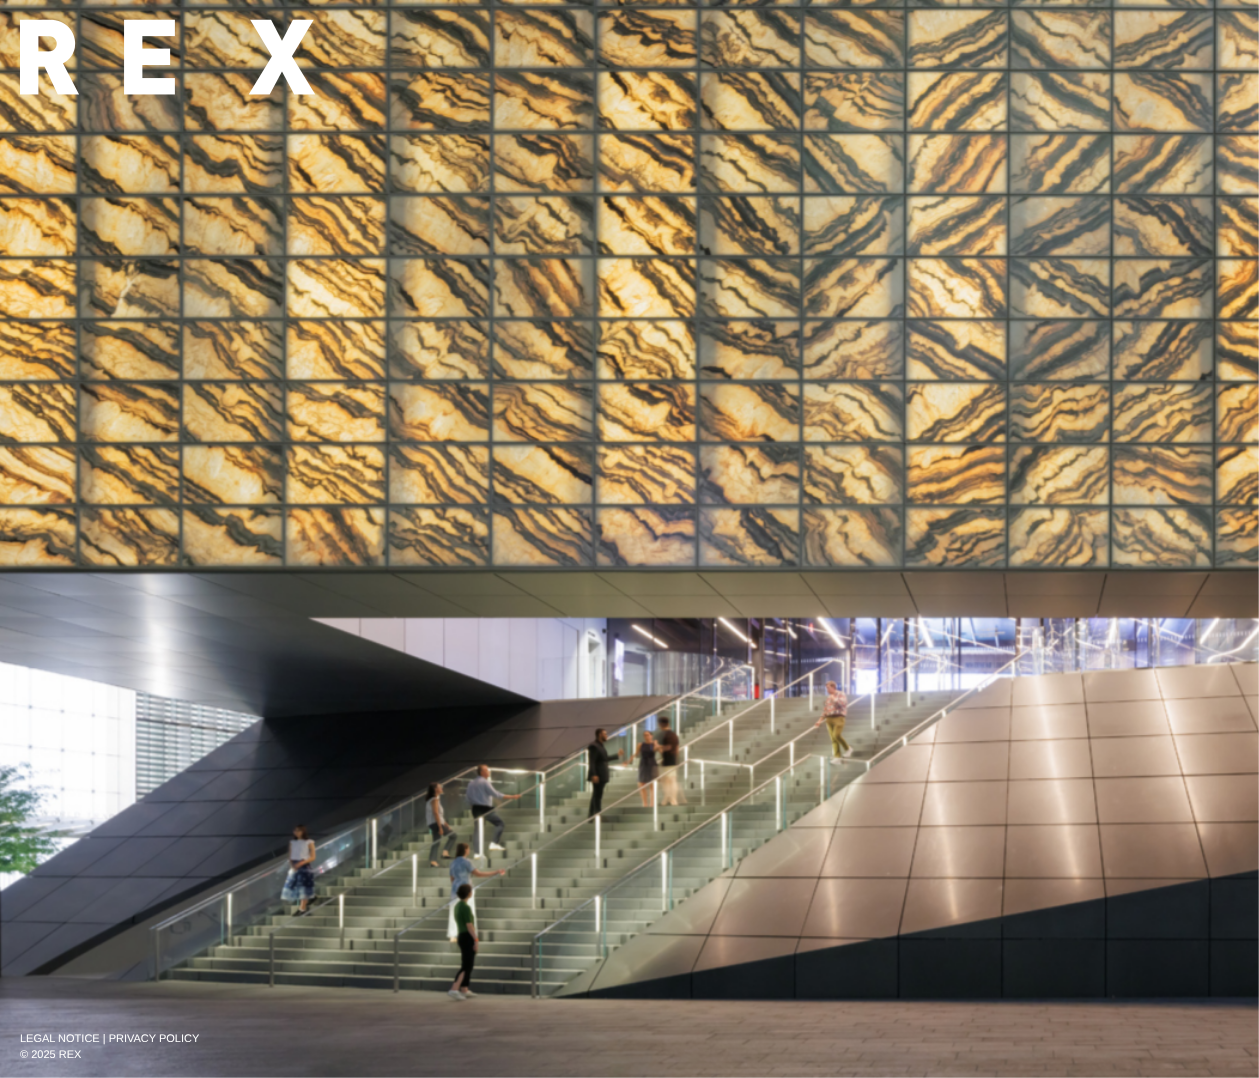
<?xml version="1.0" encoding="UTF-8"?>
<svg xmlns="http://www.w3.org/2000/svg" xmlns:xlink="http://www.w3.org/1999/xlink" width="1259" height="1078">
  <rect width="100%" height="100%" fill="#ffffff" />
  <image x="0" y="0" width="1259" height="1078" xlink:href="image1.png" />
  <image x="20" y="19" width="296" height="76" xlink:href="image2.png" />
  <text x="20" y="1042" style="font-family: Liberation Sans; font-size: 11px; fill: #ffffff">LEGAL NOTICE | PRIVACY POLICY</text>
  <text x="20" y="1058" style="font-family: Liberation Sans; font-size: 11px; fill: #ffffff">© 2025 REX</text>
</svg>
